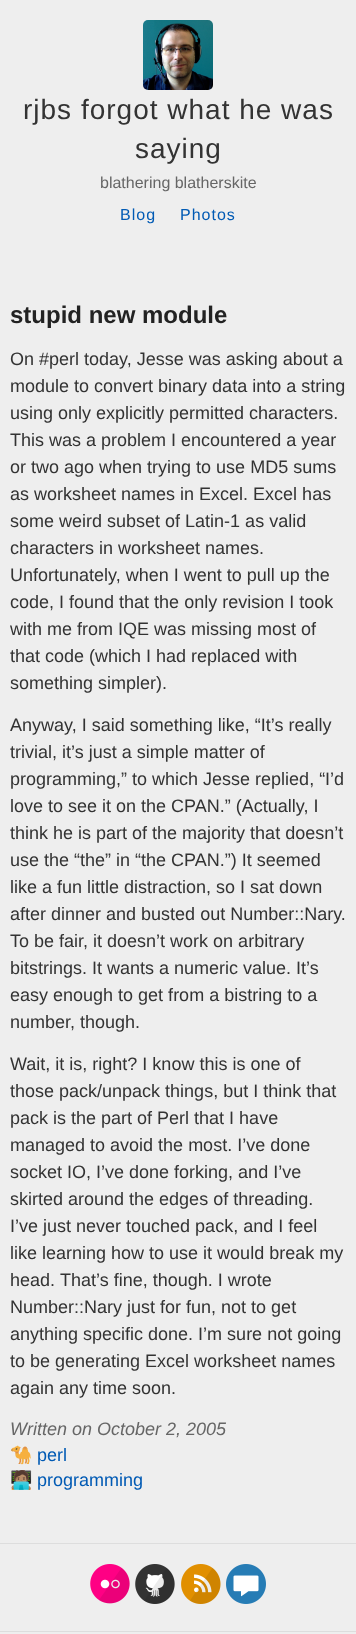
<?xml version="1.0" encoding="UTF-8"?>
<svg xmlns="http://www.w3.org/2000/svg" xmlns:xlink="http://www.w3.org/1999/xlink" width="356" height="1634">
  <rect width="100%" height="100%" fill="#eeeeee" />
  <image x="143" y="20" width="70" height="70" xlink:href="image1.png" />
  <rect y="1543" width="356" height="1" fill="#dddddd" />
  <rect y="1631" width="356" height="1" fill="#dddddd" />
  <image x="90" y="1564" width="40" height="40" xlink:href="image2.png" />
  <image x="135" y="1564" width="40" height="40" xlink:href="image3.png" />
  <image x="181" y="1564" width="40" height="40" xlink:href="image4.png" />
  <image x="226" y="1564" width="40" height="40" xlink:href="image5.png" />
  <text x="23" y="119" style="font-family: Liberation Sans; font-size: 28px; letter-spacing: 1px; fill: #333333">rjbs forgot what he was</text>
  <text x="135" y="158" style="font-family: Liberation Sans; font-size: 28px; letter-spacing: 1px; fill: #333333">saying</text>
  <text x="100" y="188" style="font-family: Liberation Sans; font-size: 16px; fill: #666666">blathering blatherskite</text>
  <text x="120" y="220" style="font-family: Liberation Sans; font-size: 16px; letter-spacing: 1px; fill: #005ab4">Blog</text>
  <text x="180" y="220" style="font-family: Liberation Sans; font-size: 16px; letter-spacing: 1px; fill: #005ab4">Photos</text>
  <text x="10" y="323" style="font-family: Liberation Sans; font-size: 24px; font-weight: bold; fill: #222222">stupid new module</text>
  <text x="10" y="365" style="font-family: Liberation Sans; font-size: 18px; fill: #333333">On #perl today, Jesse was asking about a</text>
  <text x="10" y="392" style="font-family: Liberation Sans; font-size: 18px; fill: #333333">module to convert binary data into a string</text>
  <text x="10" y="419" style="font-family: Liberation Sans; font-size: 18px; fill: #333333">using only explicitly permitted characters.</text>
  <text x="10" y="446" style="font-family: Liberation Sans; font-size: 18px; fill: #333333">This was a problem I encountered a year</text>
  <text x="10" y="473" style="font-family: Liberation Sans; font-size: 18px; fill: #333333">or two ago when trying to use MD5 sums</text>
  <text x="10" y="500" style="font-family: Liberation Sans; font-size: 18px; fill: #333333">as worksheet names in Excel. Excel has</text>
  <text x="10" y="527" style="font-family: Liberation Sans; font-size: 18px; fill: #333333">some weird subset of Latin-1 as valid</text>
  <text x="10" y="554" style="font-family: Liberation Sans; font-size: 18px; fill: #333333">characters in worksheet names.</text>
  <text x="10" y="581" style="font-family: Liberation Sans; font-size: 18px; fill: #333333">Unfortunately, when I went to pull up the</text>
  <text x="10" y="608" style="font-family: Liberation Sans; font-size: 18px; fill: #333333">code, I found that the only revision I took</text>
  <text x="10" y="635" style="font-family: Liberation Sans; font-size: 18px; fill: #333333">with me from IQE was missing most of</text>
  <text x="10" y="662" style="font-family: Liberation Sans; font-size: 18px; fill: #333333">that code (which I had replaced with</text>
  <text x="10" y="689" style="font-family: Liberation Sans; font-size: 18px; fill: #333333">something simpler).</text>
  <text x="10" y="731" style="font-family: Liberation Sans; font-size: 18px; fill: #333333">Anyway, I said something like, “It’s really</text>
  <text x="10" y="758" style="font-family: Liberation Sans; font-size: 18px; fill: #333333">trivial, it’s just a simple matter of</text>
  <text x="10" y="785" style="font-family: Liberation Sans; font-size: 18px; fill: #333333">programming,” to which Jesse replied, “I’d</text>
  <text x="10" y="812" style="font-family: Liberation Sans; font-size: 18px; fill: #333333">love to see it on the CPAN.” (Actually, I</text>
  <text x="10" y="839" style="font-family: Liberation Sans; font-size: 18px; fill: #333333">think he is part of the majority that doesn’t</text>
  <text x="10" y="866" style="font-family: Liberation Sans; font-size: 18px; fill: #333333">use the “the” in “the CPAN.”) It seemed</text>
  <text x="10" y="893" style="font-family: Liberation Sans; font-size: 18px; fill: #333333">like a fun little distraction, so I sat down</text>
  <text x="10" y="920" style="font-family: Liberation Sans; font-size: 18px; fill: #333333">after dinner and busted out Number::Nary.</text>
  <text x="10" y="947" style="font-family: Liberation Sans; font-size: 18px; fill: #333333">To be fair, it doesn’t work on arbitrary</text>
  <text x="10" y="974" style="font-family: Liberation Sans; font-size: 18px; fill: #333333">bitstrings. It wants a numeric value. It’s</text>
  <text x="10" y="1001" style="font-family: Liberation Sans; font-size: 18px; fill: #333333">easy enough to get from a bistring to a</text>
  <text x="10" y="1028" style="font-family: Liberation Sans; font-size: 18px; fill: #333333">number, though.</text>
  <text x="10" y="1070" style="font-family: Liberation Sans; font-size: 18px; fill: #333333">Wait, it is, right? I know this is one of</text>
  <text x="10" y="1097" style="font-family: Liberation Sans; font-size: 18px; fill: #333333">those pack/unpack things, but I think that</text>
  <text x="10" y="1124" style="font-family: Liberation Sans; font-size: 18px; fill: #333333">pack is the part of Perl that I have</text>
  <text x="10" y="1151" style="font-family: Liberation Sans; font-size: 18px; fill: #333333">managed to avoid the most. I’ve done</text>
  <text x="10" y="1178" style="font-family: Liberation Sans; font-size: 18px; fill: #333333">socket IO, I’ve done forking, and I’ve</text>
  <text x="10" y="1205" style="font-family: Liberation Sans; font-size: 18px; fill: #333333">skirted around the edges of threading.</text>
  <text x="10" y="1232" style="font-family: Liberation Sans; font-size: 18px; fill: #333333">I’ve just never touched pack, and I feel</text>
  <text x="10" y="1259" style="font-family: Liberation Sans; font-size: 18px; fill: #333333">like learning how to use it would break my</text>
  <text x="10" y="1286" style="font-family: Liberation Sans; font-size: 18px; fill: #333333">head.</text>
  <text x="60" y="1286" style="font-family: Liberation Sans; font-size: 18px; fill: #333333">That’s fine, though. I wrote</text>
  <text x="10" y="1313" style="font-family: Liberation Sans; font-size: 18px; fill: #333333">Number::Nary just for fun, not to get</text>
  <text x="10" y="1340" style="font-family: Liberation Sans; font-size: 18px; fill: #333333">anything specific done. I’m sure not going</text>
  <text x="10" y="1367" style="font-family: Liberation Sans; font-size: 18px; fill: #333333">to be generating Excel worksheet names</text>
  <text x="10" y="1394" style="font-family: Liberation Sans; font-size: 18px; fill: #333333">again any time soon.</text>
  <text x="10" y="1435" style="font-family: Liberation Sans; font-size: 18px; font-style: italic; fill: #666666">Written on October 2, 2005</text>
  <text x="10" y="1461" style="font-family: Noto Color Emoji; font-size: 18px; fill: #333333">🐪</text>
  <text x="37" y="1461" style="font-family: Liberation Sans; font-size: 18px; fill: #005ab4">perl</text>
  <text x="10" y="1486" style="font-family: Noto Color Emoji; font-size: 18px; fill: #333333">🧑🏽‍💻</text>
  <text x="37" y="1486" style="font-family: Liberation Sans; font-size: 18px; fill: #005ab4">programming</text>
</svg>
